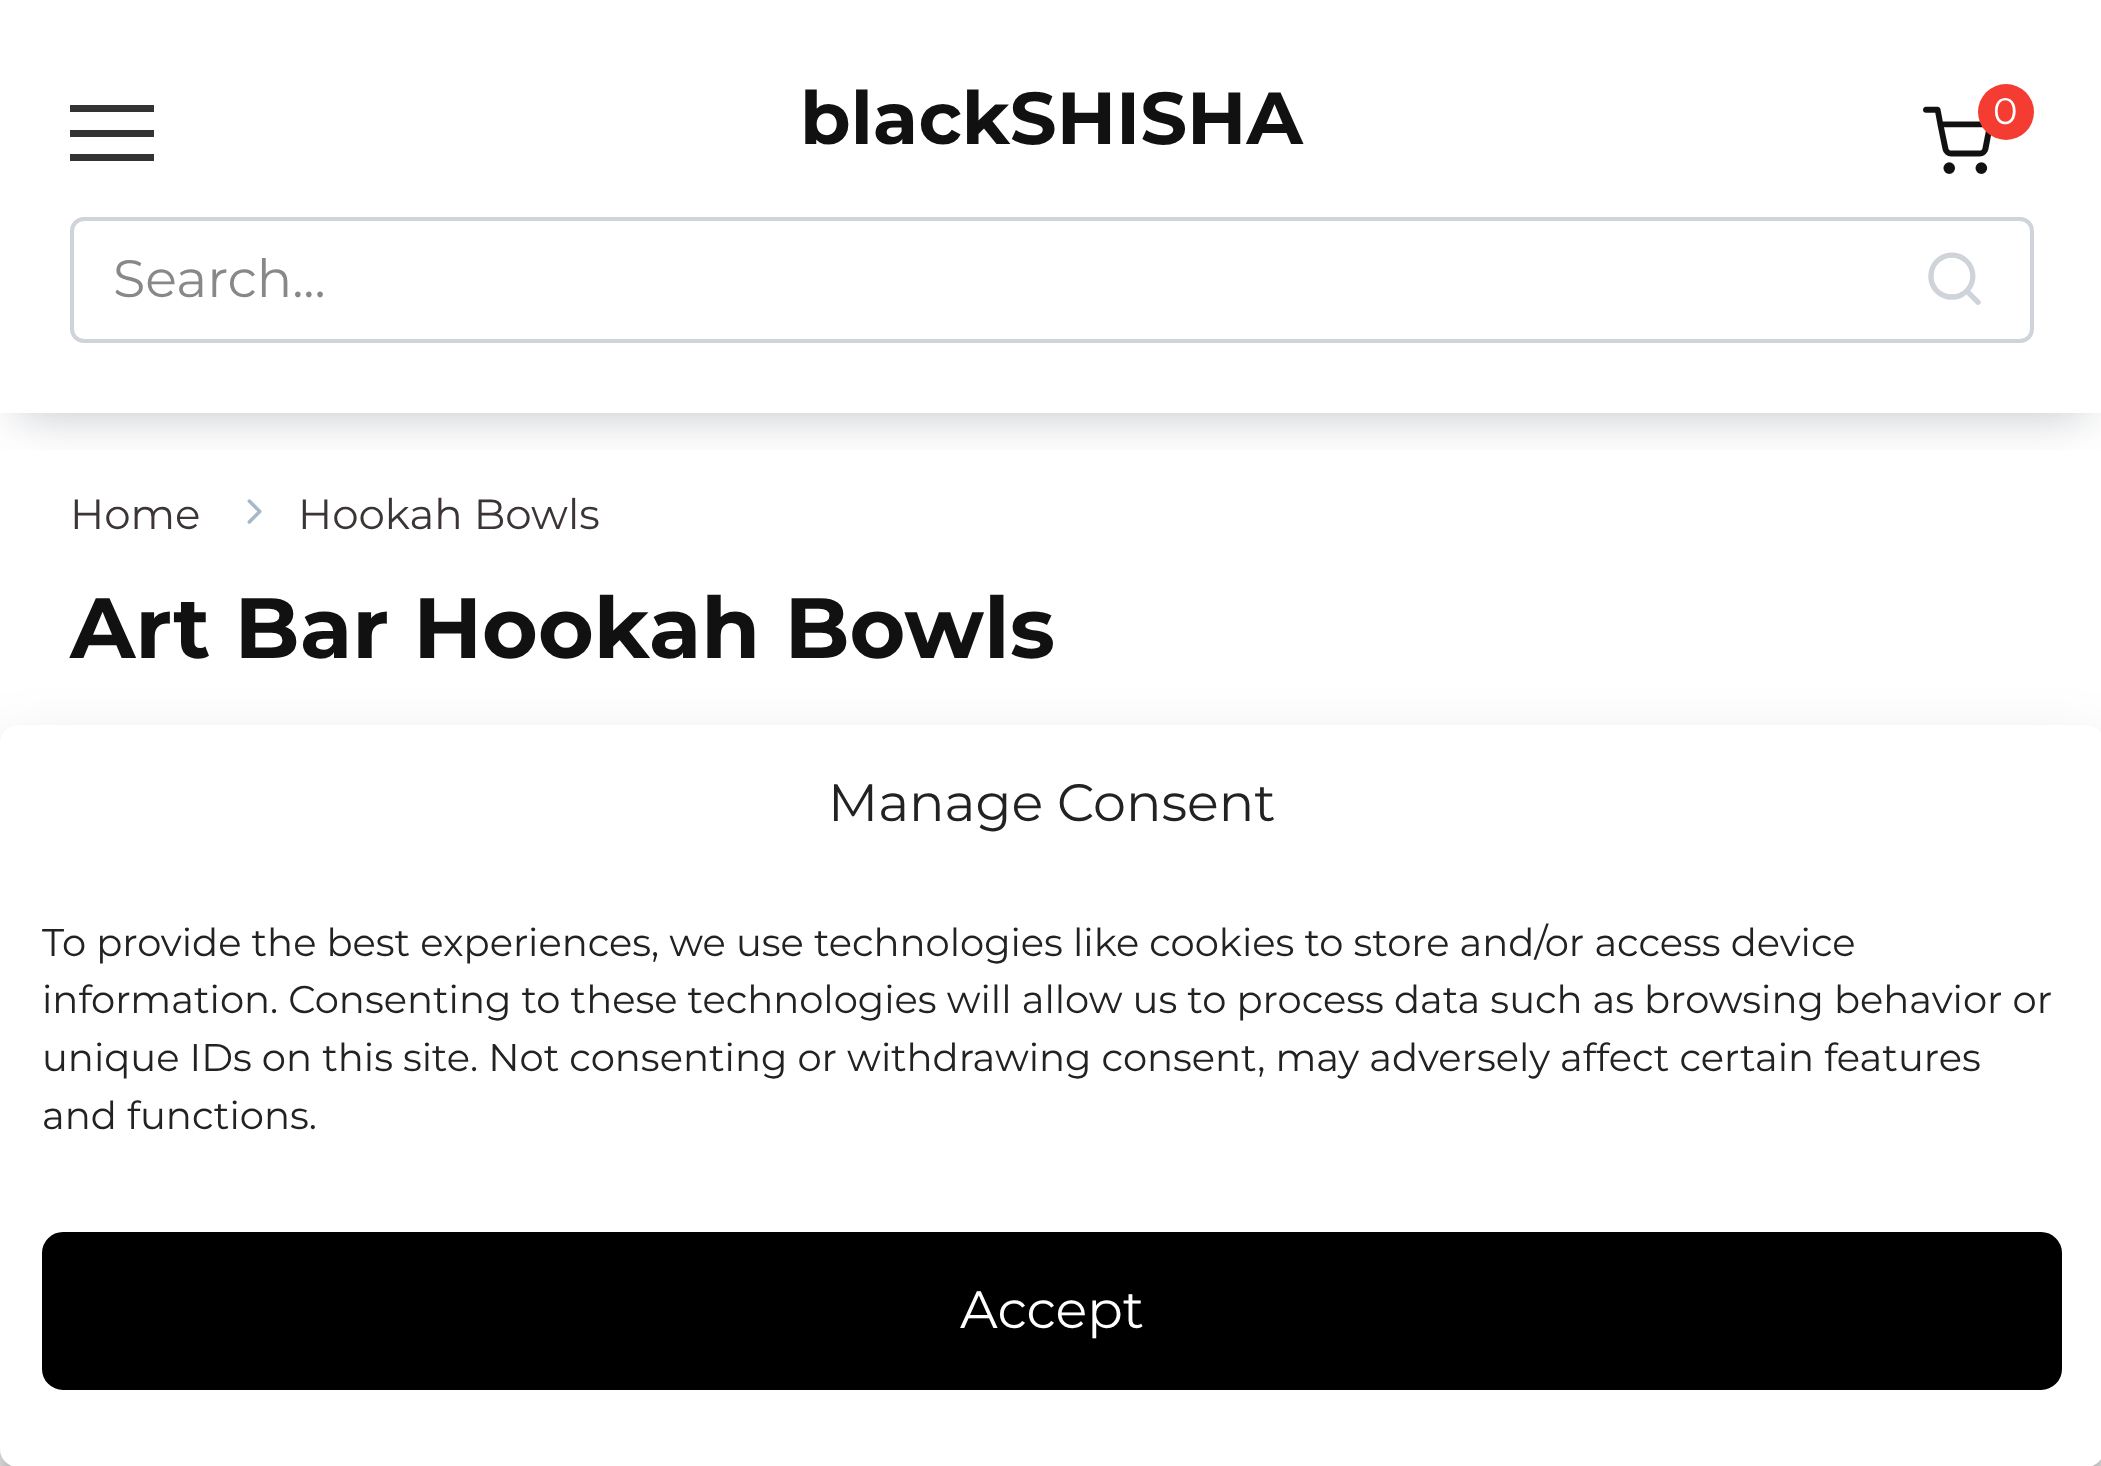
<?xml version="1.0" encoding="UTF-8"?>
<svg xmlns="http://www.w3.org/2000/svg" xmlns:xlink="http://www.w3.org/1999/xlink" width="2101" height="1466">
  <defs>
    <clipPath id="clip1"><rect x="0" y="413" width="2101" height="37" /></clipPath>
  </defs>
  <rect width="100%" height="100%" fill="#ffffff" />
  <g clip-path="url(#clip1)">
    <rect x="18" y="35" width="2068" height="378" fill="#273143" fill-opacity="0.3" filter="blur(24.5px)" />
  </g>
  <rect x="70" y="105" width="84" height="7" fill="#333333" />
  <rect x="70" y="130" width="84" height="7" fill="#333333" />
  <rect x="70" y="154" width="84" height="7" fill="#333333" />
  <rect x="72" y="219" width="1960" height="122" rx="12" fill="none" stroke="#ced4da" stroke-width="4" />
  <rect y="746" width="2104" height="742" rx="18" fill="#000000" fill-opacity="0.23" filter="blur(10.5px)" />
  <rect y="760" width="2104" height="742" rx="18" fill="#000000" fill-opacity="0.19" filter="blur(35px)" />
  <rect y="725" width="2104" height="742" rx="18" fill="#ffffff" />
  <rect x="44" y="1234" width="2016" height="154" rx="19" fill="#000000" stroke="#000000" stroke-width="4" />
  <text x="800" y="144" style="font-family: Montserrat; font-size: 73.5px; font-weight: bold; fill: #111111">blackSHISHA</text>
  <text x="1923" y="171" style="font-family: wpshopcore; font-size: 70px; fill: #111111">🛒</text>
  <circle cx="2006" cy="112" r="28" fill="#f43c33" />
  <text x="1993" y="124" style="font-family: Montserrat; font-size: 37px; fill: #ffffff">0</text>
  <text x="113" y="297" style="font-family: Montserrat; font-size: 52.5px; fill: #888888">Search...</text>
  <text x="1923" y="305" style="font-family: wpshopcore; font-size: 63px; fill: #ced4da">🔍</text>
  <text x="70" y="529" style="font-family: Montserrat; font-size: 42px; fill: #3b3535">Home</text>
  <text x="233" y="529" style="font-family: wpshopcore; font-size: 42px; fill: #a7b8c8">↦</text>
  <text x="298" y="529" style="font-family: Montserrat; font-size: 42px; fill: #3b3535">Hookah Bowls</text>
  <text x="70" y="658" style="font-family: Montserrat; font-size: 85.25px; font-weight: bold; fill: #111111">Art Bar Hookah Bowls</text>
  <text x="828" y="821" style="font-family: Montserrat; font-size: 52.5px; fill: #222222">Manage Consent</text>
  <text x="42" y="956" style="font-family: Montserrat; font-size: 38.5px; fill: #222222">To provide the best experiences, we use technologies like cookies to store and/or access device</text>
  <text x="42" y="1013" style="font-family: Montserrat; font-size: 38.5px; fill: #222222">information. Consenting to these technologies will allow us to process data such as browsing behavior or</text>
  <text x="42" y="1071" style="font-family: Montserrat; font-size: 38.5px; fill: #222222">unique IDs on this site. Not consenting or withdrawing consent, may adversely affect certain features</text>
  <text x="42" y="1129" style="font-family: Montserrat; font-size: 38.5px; fill: #222222">and functions.</text>
  <text x="960" y="1328" style="font-family: Montserrat; font-size: 52.5px; fill: #ffffff">Accept</text>
</svg>
